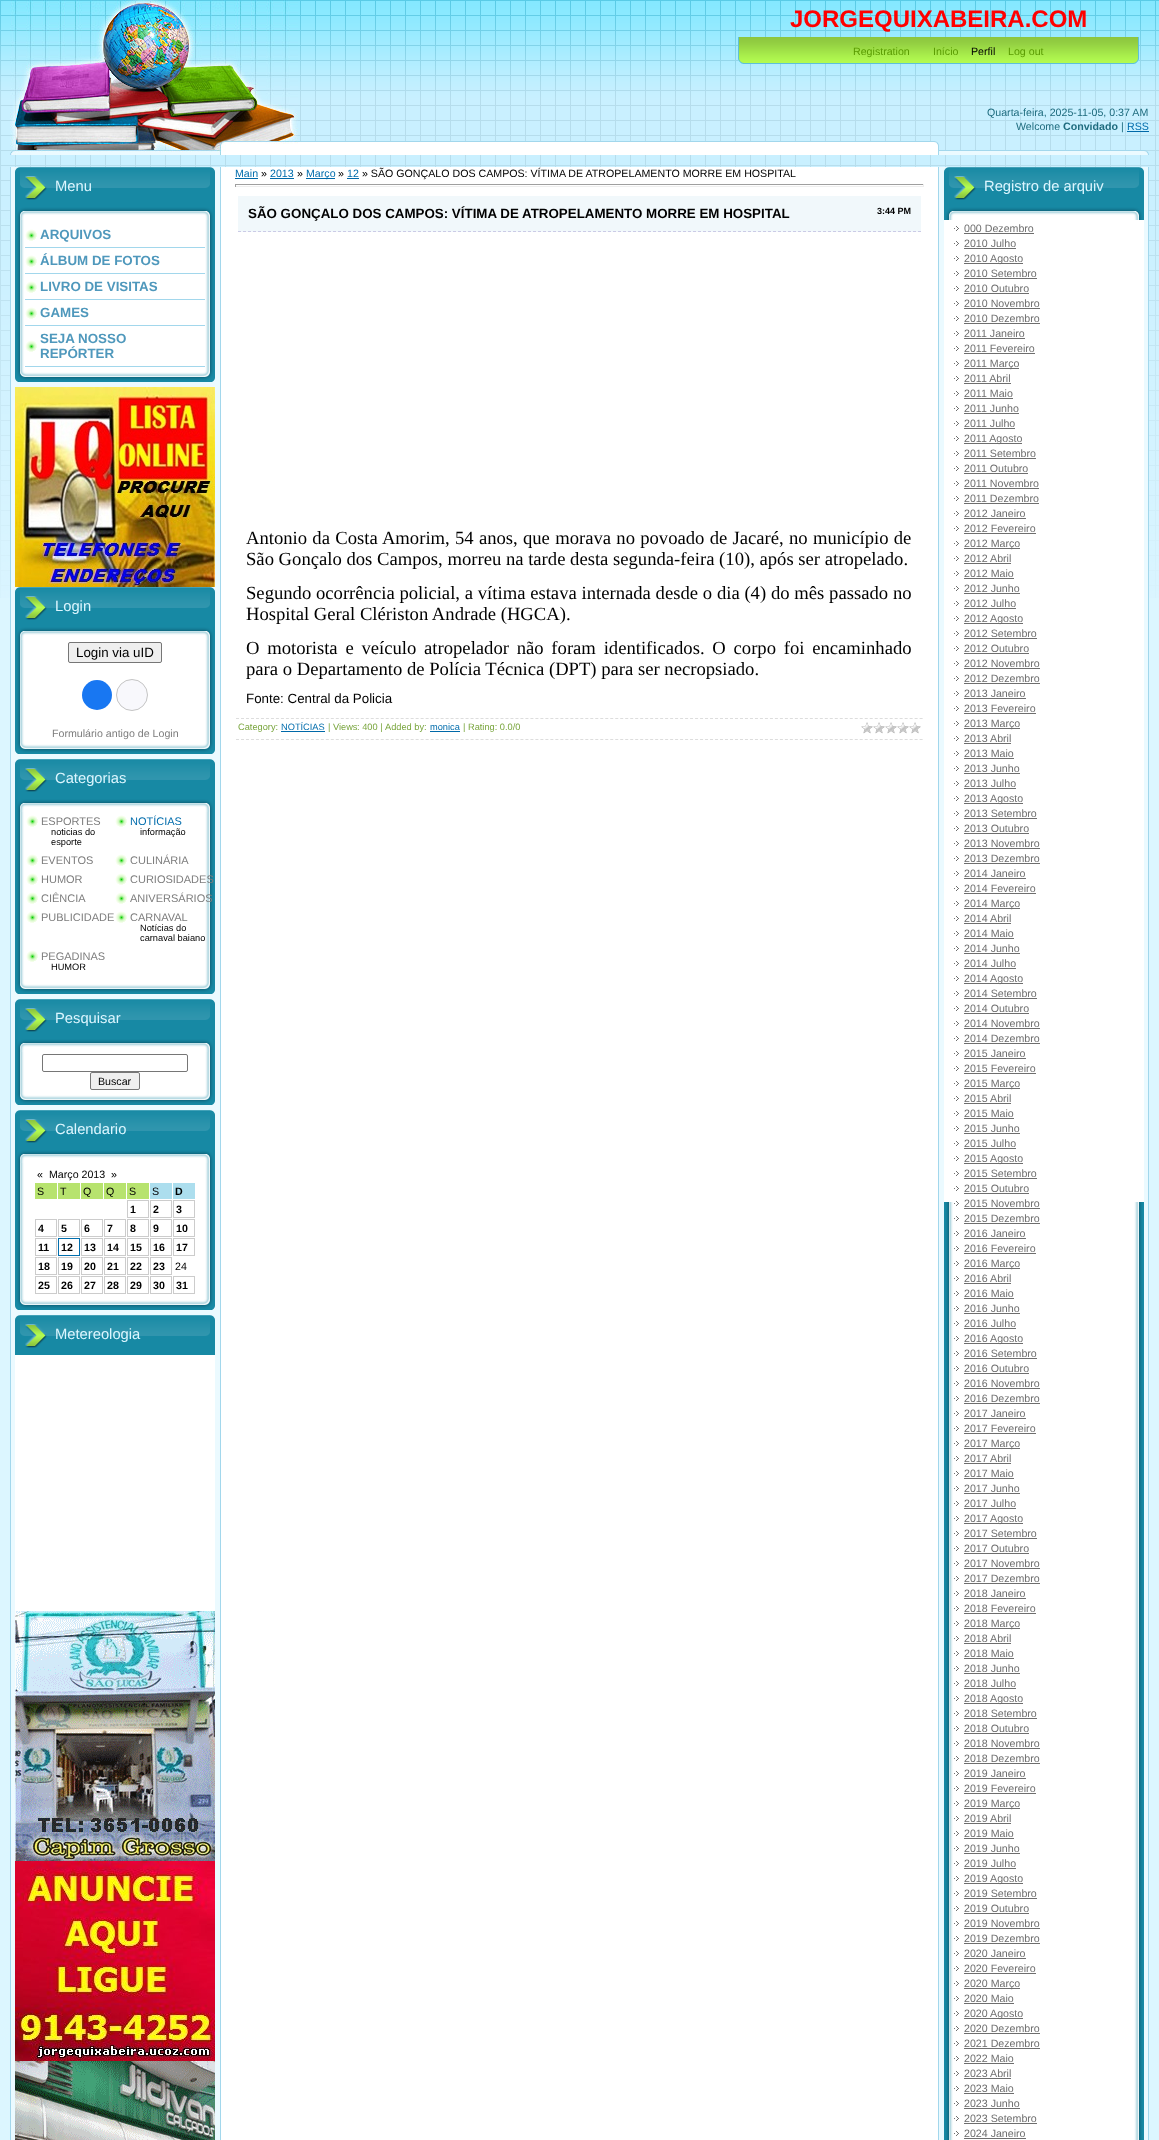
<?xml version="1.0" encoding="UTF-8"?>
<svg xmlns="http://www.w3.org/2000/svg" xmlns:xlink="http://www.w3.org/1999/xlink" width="1159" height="2140">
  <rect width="100%" height="100%" fill="#dcf6ff" />
  <image x="0" y="0" width="1159" height="598" xlink:href="image1.png" />
  <image x="298" y="141" width="851" height="14" xlink:href="image2.png" />
  <image x="10" y="0" width="288" height="155" xlink:href="image3.png" />
  <image x="738" y="37" width="401" height="27" xlink:href="image4.png" />
  <rect x="1127" y="131" width="22" height="1" fill="#0069a9" />
  <image x="10" y="167" width="215" height="1973" xlink:href="image5.png" />
  <image x="15" y="207" width="200" height="175" xlink:href="image6.png" />
  <rect x="15" y="200" width="200" height="7" fill="#1789a4" />
  <image x="15" y="167" width="200" height="33" xlink:href="image7.png" />
  <image x="17" y="207" width="196" height="13" xlink:href="image8.png" />
  <image x="25" y="229" width="12" height="12" xlink:href="image9.png" />
  <rect x="25" y="247" width="180" height="1" fill="#a2d7ec" />
  <image x="25" y="255" width="12" height="12" xlink:href="image9.png" />
  <rect x="25" y="273" width="180" height="1" fill="#a2d7ec" />
  <image x="25" y="281" width="12" height="12" xlink:href="image9.png" />
  <rect x="25" y="299" width="180" height="1" fill="#a2d7ec" />
  <image x="25" y="307" width="12" height="12" xlink:href="image9.png" />
  <rect x="25" y="325" width="180" height="1" fill="#a2d7ec" />
  <image x="25" y="340" width="12" height="12" xlink:href="image9.png" />
  <rect x="25" y="366" width="180" height="1" fill="#a2d7ec" />
  <image x="15" y="387" width="200" height="200" xlink:href="image10.png" />
  <image x="15" y="627" width="200" height="127" xlink:href="image11.png" />
  <rect x="15" y="620" width="200" height="7" fill="#1789a4" />
  <image x="15" y="587" width="200" height="33" xlink:href="image7.png" />
  <image x="17" y="627" width="196" height="13" xlink:href="image8.png" />
  <rect x="68.5" y="642.5" width="93" height="20" rx="1.5" fill="#efefef" stroke="#767676" />
  <circle cx="97" cy="695" r="15" fill="#1877f2" />
  <circle cx="132" cy="695" r="15.5" fill="#f8f8fc" stroke="#c4c4c4" />
  <image x="15" y="799" width="200" height="195" xlink:href="image12.png" />
  <rect x="15" y="792" width="200" height="7" fill="#1789a4" />
  <image x="15" y="759" width="200" height="33" xlink:href="image7.png" />
  <image x="17" y="799" width="196" height="13" xlink:href="image8.png" />
  <image x="26" y="815" width="12" height="12" xlink:href="image9.png" />
  <image x="115" y="815" width="12" height="12" xlink:href="image9.png" />
  <image x="26" y="854" width="12" height="12" xlink:href="image9.png" />
  <image x="115" y="854" width="12" height="12" xlink:href="image9.png" />
  <image x="26" y="873" width="12" height="12" xlink:href="image9.png" />
  <image x="115" y="873" width="12" height="12" xlink:href="image9.png" />
  <image x="26" y="892" width="12" height="12" xlink:href="image9.png" />
  <image x="115" y="892" width="12" height="12" xlink:href="image9.png" />
  <image x="26" y="911" width="12" height="12" xlink:href="image9.png" />
  <image x="115" y="911" width="12" height="12" xlink:href="image9.png" />
  <image x="26" y="950" width="12" height="12" xlink:href="image9.png" />
  <image x="15" y="1039" width="200" height="66" xlink:href="image13.png" />
  <rect x="15" y="1032" width="200" height="7" fill="#1789a4" />
  <image x="15" y="999" width="200" height="33" xlink:href="image7.png" />
  <image x="17" y="1039" width="196" height="13" xlink:href="image8.png" />
  <rect x="42.5" y="1054.5" width="145" height="17" rx="1.5" fill="none" stroke="#767676" />
  <rect x="90.5" y="1072.5" width="49" height="17" rx="1.5" fill="#efefef" stroke="#767676" />
  <image x="15" y="1150" width="200" height="160" xlink:href="image14.png" />
  <rect x="15" y="1143" width="200" height="7" fill="#1789a4" />
  <image x="15" y="1110" width="200" height="33" xlink:href="image7.png" />
  <image x="17" y="1150" width="196" height="13" xlink:href="image8.png" />
  <rect x="35" y="1183" width="22" height="16" fill="#b7e36e" />
  <rect x="58" y="1183" width="22" height="16" fill="#b7e36e" />
  <rect x="81" y="1183" width="22" height="16" fill="#b7e36e" />
  <rect x="104" y="1183" width="22" height="16" fill="#b7e36e" />
  <rect x="127" y="1183" width="22" height="16" fill="#b7e36e" />
  <rect x="150" y="1183" width="22" height="16" fill="#acdeee" />
  <rect x="173" y="1183" width="22" height="16" fill="#acdeee" />
  <rect x="127.5" y="1200.5" width="21" height="17" fill="none" stroke="#cccccc" />
  <rect x="150.5" y="1200.5" width="21" height="17" fill="none" stroke="#cccccc" />
  <rect x="173.5" y="1200.5" width="21" height="17" fill="none" stroke="#cccccc" />
  <rect x="35.5" y="1219.5" width="21" height="17" fill="none" stroke="#cccccc" />
  <rect x="58.5" y="1219.5" width="21" height="17" fill="none" stroke="#cccccc" />
  <rect x="81.5" y="1219.5" width="21" height="17" fill="none" stroke="#cccccc" />
  <rect x="104.5" y="1219.5" width="21" height="17" fill="none" stroke="#cccccc" />
  <rect x="127.5" y="1219.5" width="21" height="17" fill="none" stroke="#cccccc" />
  <rect x="150.5" y="1219.5" width="21" height="17" fill="none" stroke="#cccccc" />
  <rect x="173.5" y="1219.5" width="21" height="17" fill="none" stroke="#cccccc" />
  <rect x="35.5" y="1238.5" width="21" height="17" fill="none" stroke="#cccccc" />
  <rect x="58.5" y="1238.5" width="21" height="17" fill="none" stroke="#016ead" />
  <rect x="81.5" y="1238.5" width="21" height="17" fill="none" stroke="#cccccc" />
  <rect x="104.5" y="1238.5" width="21" height="17" fill="none" stroke="#cccccc" />
  <rect x="127.5" y="1238.5" width="21" height="17" fill="none" stroke="#cccccc" />
  <rect x="150.5" y="1238.5" width="21" height="17" fill="none" stroke="#cccccc" />
  <rect x="173.5" y="1238.5" width="21" height="17" fill="none" stroke="#cccccc" />
  <rect x="35.5" y="1257.5" width="21" height="17" fill="none" stroke="#cccccc" />
  <rect x="58.5" y="1257.5" width="21" height="17" fill="none" stroke="#cccccc" />
  <rect x="81.5" y="1257.5" width="21" height="17" fill="none" stroke="#cccccc" />
  <rect x="104.5" y="1257.5" width="21" height="17" fill="none" stroke="#cccccc" />
  <rect x="127.5" y="1257.5" width="21" height="17" fill="none" stroke="#cccccc" />
  <rect x="150.5" y="1257.5" width="21" height="17" fill="none" stroke="#cccccc" />
  <rect x="35.5" y="1276.5" width="21" height="17" fill="none" stroke="#cccccc" />
  <rect x="58.5" y="1276.5" width="21" height="17" fill="none" stroke="#cccccc" />
  <rect x="81.5" y="1276.5" width="21" height="17" fill="none" stroke="#cccccc" />
  <rect x="104.5" y="1276.5" width="21" height="17" fill="none" stroke="#cccccc" />
  <rect x="127.5" y="1276.5" width="21" height="17" fill="none" stroke="#cccccc" />
  <rect x="150.5" y="1276.5" width="21" height="17" fill="none" stroke="#cccccc" />
  <rect x="173.5" y="1276.5" width="21" height="17" fill="none" stroke="#cccccc" />
  <rect x="15" y="1355" width="200" height="256" fill="#ffffff" />
  <rect x="15" y="1348" width="200" height="7" fill="#1789a4" />
  <image x="15" y="1315" width="200" height="33" xlink:href="image7.png" />
  <image x="15" y="1611" width="200" height="250" xlink:href="image15.png" />
  <image x="15" y="1861" width="200" height="200" xlink:href="image16.png" />
  <image x="15" y="2061" width="200" height="79" xlink:href="image17.png" />
  <rect x="225" y="167" width="709" height="1973" fill="#ffffff" />
  <rect x="235" y="178" width="23" height="1" fill="#0069a9" />
  <rect x="270" y="178" width="24" height="1" fill="#0069a9" />
  <rect x="306" y="178" width="29" height="1" fill="#0069a9" />
  <rect x="347" y="178" width="12" height="1" fill="#0069a9" />
  <rect x="235" y="184" width="689" height="1" fill="#9f9f9f" />
  <rect x="923" y="184" width="1" height="3" fill="#eeeeee" />
  <rect x="235" y="186" width="689" height="1" fill="#eeeeee" />
  <rect x="235" y="184" width="1" height="3" fill="#9f9f9f" />
  <rect x="238" y="196" width="683" height="36" fill="#f1f8fb" />
  <path d="M 238 231.5 h 683" fill="none" stroke="#cbcbe6" stroke-dasharray="3 2" />
  <path d="M 236 718.5 h 687" fill="none" stroke="#dddddd" stroke-dasharray="3 1.99" />
  <path d="M 236 739.5 h 687" fill="none" stroke="#dddddd" stroke-dasharray="3 1.99" />
  <rect x="281" y="731" width="44" height="1" fill="#0069a9" />
  <rect x="430" y="731" width="30" height="1" fill="#0069a9" />
  <image x="861" y="722" width="60" height="12" xlink:href="image18.png" />
  <image x="934" y="167" width="215" height="1973" xlink:href="image19.png" />
  <rect x="944" y="220" width="200" height="982" fill="#ffffff" />
  <image x="944" y="1202" width="200" height="938" xlink:href="image20.png" />
  <rect x="944" y="200" width="200" height="7" fill="#1789a4" />
  <image x="944" y="167" width="200" height="33" xlink:href="image7.png" />
  <image x="944" y="207" width="200" height="13" xlink:href="image21.png" />
  <image x="954" y="226" width="5" height="5" xlink:href="image22.png" />
  <rect x="964" y="233" width="70" height="1" fill="#6e6e6e" />
  <image x="954" y="241" width="5" height="5" xlink:href="image22.png" />
  <rect x="964" y="248" width="52" height="1" fill="#6e6e6e" />
  <image x="954" y="256" width="5" height="5" xlink:href="image22.png" />
  <rect x="964" y="263" width="59" height="1" fill="#6e6e6e" />
  <image x="954" y="271" width="5" height="5" xlink:href="image22.png" />
  <rect x="964" y="278" width="73" height="1" fill="#6e6e6e" />
  <image x="954" y="286" width="5" height="5" xlink:href="image22.png" />
  <rect x="964" y="293" width="65" height="1" fill="#6e6e6e" />
  <image x="954" y="301" width="5" height="5" xlink:href="image22.png" />
  <rect x="964" y="308" width="76" height="1" fill="#6e6e6e" />
  <image x="954" y="316" width="5" height="5" xlink:href="image22.png" />
  <rect x="964" y="323" width="76" height="1" fill="#6e6e6e" />
  <image x="954" y="331" width="5" height="5" xlink:href="image22.png" />
  <rect x="964" y="338" width="61" height="1" fill="#6e6e6e" />
  <image x="954" y="346" width="5" height="5" xlink:href="image22.png" />
  <rect x="964" y="353" width="71" height="1" fill="#6e6e6e" />
  <image x="954" y="361" width="5" height="5" xlink:href="image22.png" />
  <rect x="964" y="368" width="55" height="1" fill="#6e6e6e" />
  <image x="954" y="376" width="5" height="5" xlink:href="image22.png" />
  <rect x="964" y="383" width="47" height="1" fill="#6e6e6e" />
  <image x="954" y="391" width="5" height="5" xlink:href="image22.png" />
  <rect x="964" y="398" width="49" height="1" fill="#6e6e6e" />
  <image x="954" y="406" width="5" height="5" xlink:href="image22.png" />
  <rect x="964" y="413" width="55" height="1" fill="#6e6e6e" />
  <image x="954" y="421" width="5" height="5" xlink:href="image22.png" />
  <rect x="964" y="428" width="51" height="1" fill="#6e6e6e" />
  <image x="954" y="436" width="5" height="5" xlink:href="image22.png" />
  <rect x="964" y="443" width="58" height="1" fill="#6e6e6e" />
  <image x="954" y="451" width="5" height="5" xlink:href="image22.png" />
  <rect x="964" y="458" width="72" height="1" fill="#6e6e6e" />
  <image x="954" y="466" width="5" height="5" xlink:href="image22.png" />
  <rect x="964" y="473" width="64" height="1" fill="#6e6e6e" />
  <image x="954" y="481" width="5" height="5" xlink:href="image22.png" />
  <rect x="964" y="488" width="75" height="1" fill="#6e6e6e" />
  <image x="954" y="496" width="5" height="5" xlink:href="image22.png" />
  <rect x="964" y="503" width="75" height="1" fill="#6e6e6e" />
  <image x="954" y="511" width="5" height="5" xlink:href="image22.png" />
  <rect x="964" y="518" width="62" height="1" fill="#6e6e6e" />
  <image x="954" y="526" width="5" height="5" xlink:href="image22.png" />
  <rect x="964" y="533" width="72" height="1" fill="#6e6e6e" />
  <image x="954" y="541" width="5" height="5" xlink:href="image22.png" />
  <rect x="964" y="548" width="56" height="1" fill="#6e6e6e" />
  <image x="954" y="556" width="5" height="5" xlink:href="image22.png" />
  <rect x="964" y="563" width="47" height="1" fill="#6e6e6e" />
  <image x="954" y="571" width="5" height="5" xlink:href="image22.png" />
  <rect x="964" y="578" width="50" height="1" fill="#6e6e6e" />
  <image x="954" y="586" width="5" height="5" xlink:href="image22.png" />
  <rect x="964" y="593" width="56" height="1" fill="#6e6e6e" />
  <image x="954" y="601" width="5" height="5" xlink:href="image22.png" />
  <rect x="964" y="608" width="52" height="1" fill="#6e6e6e" />
  <image x="954" y="616" width="5" height="5" xlink:href="image22.png" />
  <rect x="964" y="623" width="59" height="1" fill="#6e6e6e" />
  <image x="954" y="631" width="5" height="5" xlink:href="image22.png" />
  <rect x="964" y="638" width="73" height="1" fill="#6e6e6e" />
  <image x="954" y="646" width="5" height="5" xlink:href="image22.png" />
  <rect x="964" y="653" width="65" height="1" fill="#6e6e6e" />
  <image x="954" y="661" width="5" height="5" xlink:href="image22.png" />
  <rect x="964" y="668" width="76" height="1" fill="#6e6e6e" />
  <image x="954" y="676" width="5" height="5" xlink:href="image22.png" />
  <rect x="964" y="683" width="76" height="1" fill="#6e6e6e" />
  <image x="954" y="691" width="5" height="5" xlink:href="image22.png" />
  <rect x="964" y="698" width="62" height="1" fill="#6e6e6e" />
  <image x="954" y="706" width="5" height="5" xlink:href="image22.png" />
  <rect x="964" y="713" width="72" height="1" fill="#6e6e6e" />
  <image x="954" y="721" width="5" height="5" xlink:href="image22.png" />
  <rect x="964" y="728" width="56" height="1" fill="#6e6e6e" />
  <image x="954" y="736" width="5" height="5" xlink:href="image22.png" />
  <rect x="964" y="743" width="47" height="1" fill="#6e6e6e" />
  <image x="954" y="751" width="5" height="5" xlink:href="image22.png" />
  <rect x="964" y="758" width="50" height="1" fill="#6e6e6e" />
  <image x="954" y="766" width="5" height="5" xlink:href="image22.png" />
  <rect x="964" y="773" width="56" height="1" fill="#6e6e6e" />
  <image x="954" y="781" width="5" height="5" xlink:href="image22.png" />
  <rect x="964" y="788" width="52" height="1" fill="#6e6e6e" />
  <image x="954" y="796" width="5" height="5" xlink:href="image22.png" />
  <rect x="964" y="803" width="59" height="1" fill="#6e6e6e" />
  <image x="954" y="811" width="5" height="5" xlink:href="image22.png" />
  <rect x="964" y="818" width="73" height="1" fill="#6e6e6e" />
  <image x="954" y="826" width="5" height="5" xlink:href="image22.png" />
  <rect x="964" y="833" width="65" height="1" fill="#6e6e6e" />
  <image x="954" y="841" width="5" height="5" xlink:href="image22.png" />
  <rect x="964" y="848" width="76" height="1" fill="#6e6e6e" />
  <image x="954" y="856" width="5" height="5" xlink:href="image22.png" />
  <rect x="964" y="863" width="76" height="1" fill="#6e6e6e" />
  <image x="954" y="871" width="5" height="5" xlink:href="image22.png" />
  <rect x="964" y="878" width="62" height="1" fill="#6e6e6e" />
  <image x="954" y="886" width="5" height="5" xlink:href="image22.png" />
  <rect x="964" y="893" width="72" height="1" fill="#6e6e6e" />
  <image x="954" y="901" width="5" height="5" xlink:href="image22.png" />
  <rect x="964" y="908" width="56" height="1" fill="#6e6e6e" />
  <image x="954" y="916" width="5" height="5" xlink:href="image22.png" />
  <rect x="964" y="923" width="47" height="1" fill="#6e6e6e" />
  <image x="954" y="931" width="5" height="5" xlink:href="image22.png" />
  <rect x="964" y="938" width="50" height="1" fill="#6e6e6e" />
  <image x="954" y="946" width="5" height="5" xlink:href="image22.png" />
  <rect x="964" y="953" width="56" height="1" fill="#6e6e6e" />
  <image x="954" y="961" width="5" height="5" xlink:href="image22.png" />
  <rect x="964" y="968" width="52" height="1" fill="#6e6e6e" />
  <image x="954" y="976" width="5" height="5" xlink:href="image22.png" />
  <rect x="964" y="983" width="59" height="1" fill="#6e6e6e" />
  <image x="954" y="991" width="5" height="5" xlink:href="image22.png" />
  <rect x="964" y="998" width="73" height="1" fill="#6e6e6e" />
  <image x="954" y="1006" width="5" height="5" xlink:href="image22.png" />
  <rect x="964" y="1013" width="65" height="1" fill="#6e6e6e" />
  <image x="954" y="1021" width="5" height="5" xlink:href="image22.png" />
  <rect x="964" y="1028" width="76" height="1" fill="#6e6e6e" />
  <image x="954" y="1036" width="5" height="5" xlink:href="image22.png" />
  <rect x="964" y="1043" width="76" height="1" fill="#6e6e6e" />
  <image x="954" y="1051" width="5" height="5" xlink:href="image22.png" />
  <rect x="964" y="1058" width="62" height="1" fill="#6e6e6e" />
  <image x="954" y="1066" width="5" height="5" xlink:href="image22.png" />
  <rect x="964" y="1073" width="72" height="1" fill="#6e6e6e" />
  <image x="954" y="1081" width="5" height="5" xlink:href="image22.png" />
  <rect x="964" y="1088" width="56" height="1" fill="#6e6e6e" />
  <image x="954" y="1096" width="5" height="5" xlink:href="image22.png" />
  <rect x="964" y="1103" width="47" height="1" fill="#6e6e6e" />
  <image x="954" y="1111" width="5" height="5" xlink:href="image22.png" />
  <rect x="964" y="1118" width="50" height="1" fill="#6e6e6e" />
  <image x="954" y="1126" width="5" height="5" xlink:href="image22.png" />
  <rect x="964" y="1133" width="56" height="1" fill="#6e6e6e" />
  <image x="954" y="1141" width="5" height="5" xlink:href="image22.png" />
  <rect x="964" y="1148" width="52" height="1" fill="#6e6e6e" />
  <image x="954" y="1156" width="5" height="5" xlink:href="image22.png" />
  <rect x="964" y="1163" width="59" height="1" fill="#6e6e6e" />
  <image x="954" y="1171" width="5" height="5" xlink:href="image22.png" />
  <rect x="964" y="1178" width="73" height="1" fill="#6e6e6e" />
  <image x="954" y="1186" width="5" height="5" xlink:href="image22.png" />
  <rect x="964" y="1193" width="65" height="1" fill="#6e6e6e" />
  <image x="954" y="1201" width="5" height="5" xlink:href="image22.png" />
  <rect x="964" y="1208" width="76" height="1" fill="#6e6e6e" />
  <image x="954" y="1216" width="5" height="5" xlink:href="image22.png" />
  <rect x="964" y="1223" width="76" height="1" fill="#6e6e6e" />
  <image x="954" y="1231" width="5" height="5" xlink:href="image22.png" />
  <rect x="964" y="1238" width="62" height="1" fill="#6e6e6e" />
  <image x="954" y="1246" width="5" height="5" xlink:href="image22.png" />
  <rect x="964" y="1253" width="72" height="1" fill="#6e6e6e" />
  <image x="954" y="1261" width="5" height="5" xlink:href="image22.png" />
  <rect x="964" y="1268" width="56" height="1" fill="#6e6e6e" />
  <image x="954" y="1276" width="5" height="5" xlink:href="image22.png" />
  <rect x="964" y="1283" width="47" height="1" fill="#6e6e6e" />
  <image x="954" y="1291" width="5" height="5" xlink:href="image22.png" />
  <rect x="964" y="1298" width="50" height="1" fill="#6e6e6e" />
  <image x="954" y="1306" width="5" height="5" xlink:href="image22.png" />
  <rect x="964" y="1313" width="56" height="1" fill="#6e6e6e" />
  <image x="954" y="1321" width="5" height="5" xlink:href="image22.png" />
  <rect x="964" y="1328" width="52" height="1" fill="#6e6e6e" />
  <image x="954" y="1336" width="5" height="5" xlink:href="image22.png" />
  <rect x="964" y="1343" width="59" height="1" fill="#6e6e6e" />
  <image x="954" y="1351" width="5" height="5" xlink:href="image22.png" />
  <rect x="964" y="1358" width="73" height="1" fill="#6e6e6e" />
  <image x="954" y="1366" width="5" height="5" xlink:href="image22.png" />
  <rect x="964" y="1373" width="65" height="1" fill="#6e6e6e" />
  <image x="954" y="1381" width="5" height="5" xlink:href="image22.png" />
  <rect x="964" y="1388" width="76" height="1" fill="#6e6e6e" />
  <image x="954" y="1396" width="5" height="5" xlink:href="image22.png" />
  <rect x="964" y="1403" width="76" height="1" fill="#6e6e6e" />
  <image x="954" y="1411" width="5" height="5" xlink:href="image22.png" />
  <rect x="964" y="1418" width="62" height="1" fill="#6e6e6e" />
  <image x="954" y="1426" width="5" height="5" xlink:href="image22.png" />
  <rect x="964" y="1433" width="72" height="1" fill="#6e6e6e" />
  <image x="954" y="1441" width="5" height="5" xlink:href="image22.png" />
  <rect x="964" y="1448" width="56" height="1" fill="#6e6e6e" />
  <image x="954" y="1456" width="5" height="5" xlink:href="image22.png" />
  <rect x="964" y="1463" width="47" height="1" fill="#6e6e6e" />
  <image x="954" y="1471" width="5" height="5" xlink:href="image22.png" />
  <rect x="964" y="1478" width="50" height="1" fill="#6e6e6e" />
  <image x="954" y="1486" width="5" height="5" xlink:href="image22.png" />
  <rect x="964" y="1493" width="56" height="1" fill="#6e6e6e" />
  <image x="954" y="1501" width="5" height="5" xlink:href="image22.png" />
  <rect x="964" y="1508" width="52" height="1" fill="#6e6e6e" />
  <image x="954" y="1516" width="5" height="5" xlink:href="image22.png" />
  <rect x="964" y="1523" width="59" height="1" fill="#6e6e6e" />
  <image x="954" y="1531" width="5" height="5" xlink:href="image22.png" />
  <rect x="964" y="1538" width="73" height="1" fill="#6e6e6e" />
  <image x="954" y="1546" width="5" height="5" xlink:href="image22.png" />
  <rect x="964" y="1553" width="65" height="1" fill="#6e6e6e" />
  <image x="954" y="1561" width="5" height="5" xlink:href="image22.png" />
  <rect x="964" y="1568" width="76" height="1" fill="#6e6e6e" />
  <image x="954" y="1576" width="5" height="5" xlink:href="image22.png" />
  <rect x="964" y="1583" width="76" height="1" fill="#6e6e6e" />
  <image x="954" y="1591" width="5" height="5" xlink:href="image22.png" />
  <rect x="964" y="1598" width="62" height="1" fill="#6e6e6e" />
  <image x="954" y="1606" width="5" height="5" xlink:href="image22.png" />
  <rect x="964" y="1613" width="72" height="1" fill="#6e6e6e" />
  <image x="954" y="1621" width="5" height="5" xlink:href="image22.png" />
  <rect x="964" y="1628" width="56" height="1" fill="#6e6e6e" />
  <image x="954" y="1636" width="5" height="5" xlink:href="image22.png" />
  <rect x="964" y="1643" width="47" height="1" fill="#6e6e6e" />
  <image x="954" y="1651" width="5" height="5" xlink:href="image22.png" />
  <rect x="964" y="1658" width="50" height="1" fill="#6e6e6e" />
  <image x="954" y="1666" width="5" height="5" xlink:href="image22.png" />
  <rect x="964" y="1673" width="56" height="1" fill="#6e6e6e" />
  <image x="954" y="1681" width="5" height="5" xlink:href="image22.png" />
  <rect x="964" y="1688" width="52" height="1" fill="#6e6e6e" />
  <image x="954" y="1696" width="5" height="5" xlink:href="image22.png" />
  <rect x="964" y="1703" width="59" height="1" fill="#6e6e6e" />
  <image x="954" y="1711" width="5" height="5" xlink:href="image22.png" />
  <rect x="964" y="1718" width="73" height="1" fill="#6e6e6e" />
  <image x="954" y="1726" width="5" height="5" xlink:href="image22.png" />
  <rect x="964" y="1733" width="65" height="1" fill="#6e6e6e" />
  <image x="954" y="1741" width="5" height="5" xlink:href="image22.png" />
  <rect x="964" y="1748" width="76" height="1" fill="#6e6e6e" />
  <image x="954" y="1756" width="5" height="5" xlink:href="image22.png" />
  <rect x="964" y="1763" width="76" height="1" fill="#6e6e6e" />
  <image x="954" y="1771" width="5" height="5" xlink:href="image22.png" />
  <rect x="964" y="1778" width="62" height="1" fill="#6e6e6e" />
  <image x="954" y="1786" width="5" height="5" xlink:href="image22.png" />
  <rect x="964" y="1793" width="72" height="1" fill="#6e6e6e" />
  <image x="954" y="1801" width="5" height="5" xlink:href="image22.png" />
  <rect x="964" y="1808" width="56" height="1" fill="#6e6e6e" />
  <image x="954" y="1816" width="5" height="5" xlink:href="image22.png" />
  <rect x="964" y="1823" width="47" height="1" fill="#6e6e6e" />
  <image x="954" y="1831" width="5" height="5" xlink:href="image22.png" />
  <rect x="964" y="1838" width="50" height="1" fill="#6e6e6e" />
  <image x="954" y="1846" width="5" height="5" xlink:href="image22.png" />
  <rect x="964" y="1853" width="56" height="1" fill="#6e6e6e" />
  <image x="954" y="1861" width="5" height="5" xlink:href="image22.png" />
  <rect x="964" y="1868" width="52" height="1" fill="#6e6e6e" />
  <image x="954" y="1876" width="5" height="5" xlink:href="image22.png" />
  <rect x="964" y="1883" width="59" height="1" fill="#6e6e6e" />
  <image x="954" y="1891" width="5" height="5" xlink:href="image22.png" />
  <rect x="964" y="1898" width="73" height="1" fill="#6e6e6e" />
  <image x="954" y="1906" width="5" height="5" xlink:href="image22.png" />
  <rect x="964" y="1913" width="65" height="1" fill="#6e6e6e" />
  <image x="954" y="1921" width="5" height="5" xlink:href="image22.png" />
  <rect x="964" y="1928" width="76" height="1" fill="#6e6e6e" />
  <image x="954" y="1936" width="5" height="5" xlink:href="image22.png" />
  <rect x="964" y="1943" width="76" height="1" fill="#6e6e6e" />
  <image x="954" y="1951" width="5" height="5" xlink:href="image22.png" />
  <rect x="964" y="1958" width="62" height="1" fill="#6e6e6e" />
  <image x="954" y="1966" width="5" height="5" xlink:href="image22.png" />
  <rect x="964" y="1973" width="72" height="1" fill="#6e6e6e" />
  <image x="954" y="1981" width="5" height="5" xlink:href="image22.png" />
  <rect x="964" y="1988" width="56" height="1" fill="#6e6e6e" />
  <image x="954" y="1996" width="5" height="5" xlink:href="image22.png" />
  <rect x="964" y="2003" width="50" height="1" fill="#6e6e6e" />
  <image x="954" y="2011" width="5" height="5" xlink:href="image22.png" />
  <rect x="964" y="2018" width="59" height="1" fill="#6e6e6e" />
  <image x="954" y="2026" width="5" height="5" xlink:href="image22.png" />
  <rect x="964" y="2033" width="76" height="1" fill="#6e6e6e" />
  <image x="954" y="2041" width="5" height="5" xlink:href="image22.png" />
  <rect x="964" y="2048" width="76" height="1" fill="#6e6e6e" />
  <image x="954" y="2056" width="5" height="5" xlink:href="image22.png" />
  <rect x="964" y="2063" width="50" height="1" fill="#6e6e6e" />
  <image x="954" y="2071" width="5" height="5" xlink:href="image22.png" />
  <rect x="964" y="2078" width="47" height="1" fill="#6e6e6e" />
  <image x="954" y="2086" width="5" height="5" xlink:href="image22.png" />
  <rect x="964" y="2093" width="50" height="1" fill="#6e6e6e" />
  <image x="954" y="2101" width="5" height="5" xlink:href="image22.png" />
  <rect x="964" y="2108" width="56" height="1" fill="#6e6e6e" />
  <image x="954" y="2116" width="5" height="5" xlink:href="image22.png" />
  <rect x="964" y="2123" width="73" height="1" fill="#6e6e6e" />
  <image x="954" y="2131" width="5" height="5" xlink:href="image22.png" />
  <rect x="964" y="2138" width="62" height="1" fill="#6e6e6e" />
  <text x="790" y="27" style="font-family: Liberation Sans; font-size: 24px; font-weight: bold; fill: #ff0000">JORGEQUIXABEIRA.COM</text>
  <text x="853" y="55" style="font-family: Liberation Sans; font-size: 10.65px; fill: #599b00">Registration</text>
  <text x="933" y="55" style="font-family: Liberation Sans; font-size: 10.65px; fill: #599b00">Início</text>
  <text x="971" y="55" style="font-family: Liberation Sans; font-size: 10.65px; fill: #000000">Perfil</text>
  <text x="1008" y="55" style="font-family: Liberation Sans; font-size: 10.65px; fill: #599b00">Log out</text>
  <text x="987" y="116" style="font-family: Liberation Sans; font-size: 10.65px; fill: #1f6c7f">Quarta-feira, 2025-11-05, 0:37 AM</text>
  <text x="1016" y="130" style="font-family: Liberation Sans; font-size: 10.65px; fill: #1f6c7f">Welcome</text>
  <text x="1063" y="130" style="font-family: Liberation Sans; font-size: 10.65px; font-weight: bold; fill: #1f6c7f">Convidado</text>
  <text x="1121" y="130" style="font-family: Liberation Sans; font-size: 10.65px; fill: #1f6c7f">|</text>
  <text x="1127" y="130" style="font-family: Liberation Sans; font-size: 10.65px; fill: #016cac">RSS</text>
  <text x="55" y="191" style="font-family: Liberation Sans; font-size: 14.75px; fill: #dcf6ff">Menu</text>
  <text x="40" y="239" style="font-family: Liberation Sans; font-size: 13.35px; font-weight: bold; fill: #4f98bc">ARQUIVOS</text>
  <text x="40" y="265" style="font-family: Liberation Sans; font-size: 13.35px; font-weight: bold; fill: #4f98bc">ÁLBUM DE FOTOS</text>
  <text x="40" y="291" style="font-family: Liberation Sans; font-size: 13.35px; font-weight: bold; fill: #4f98bc">LIVRO DE VISITAS</text>
  <text x="40" y="317" style="font-family: Liberation Sans; font-size: 13.35px; font-weight: bold; fill: #4f98bc">GAMES</text>
  <text x="40" y="343" style="font-family: Liberation Sans; font-size: 13.35px; font-weight: bold; fill: #4f98bc">SEJA NOSSO</text>
  <text x="40" y="358" style="font-family: Liberation Sans; font-size: 13.35px; font-weight: bold; fill: #4f98bc">REPÓRTER</text>
  <text x="55" y="611" style="font-family: Liberation Sans; font-size: 14.75px; fill: #dcf6ff">Login</text>
  <text x="76" y="657" style="font-family: Liberation Sans; font-size: 13.35px; fill: #000000">Login via uID</text>
  <text x="52" y="737" style="font-family: Liberation Sans; font-size: 10.65px; fill: #7d7d7d">Formulário antigo de Login</text>
  <text x="55" y="783" style="font-family: Liberation Sans; font-size: 14.75px; fill: #dcf6ff">Categorias</text>
  <text x="41" y="825" style="font-family: Liberation Sans; font-size: 11px; fill: #7d7d7d">ESPORTES</text>
  <text x="51" y="835" style="font-family: Liberation Sans; font-size: 9.25px; fill: #000000">noticias do</text>
  <text x="51" y="845" style="font-family: Liberation Sans; font-size: 9.25px; fill: #000000">esporte</text>
  <text x="130" y="825" style="font-family: Liberation Sans; font-size: 11px; fill: #016cac">NOTÍCIAS</text>
  <text x="140" y="835" style="font-family: Liberation Sans; font-size: 9.25px; fill: #000000">informação</text>
  <text x="41" y="864" style="font-family: Liberation Sans; font-size: 11px; fill: #7d7d7d">EVENTOS</text>
  <text x="130" y="864" style="font-family: Liberation Sans; font-size: 11px; fill: #7d7d7d">CULINÁRIA</text>
  <text x="41" y="883" style="font-family: Liberation Sans; font-size: 11px; fill: #7d7d7d">HUMOR</text>
  <text x="130" y="883" style="font-family: Liberation Sans; font-size: 11px; fill: #7d7d7d">CURIOSIDADES</text>
  <text x="41" y="902" style="font-family: Liberation Sans; font-size: 11px; fill: #7d7d7d">CIÊNCIA</text>
  <text x="130" y="902" style="font-family: Liberation Sans; font-size: 11px; fill: #7d7d7d">ANIVERSÁRIOS</text>
  <text x="41" y="921" style="font-family: Liberation Sans; font-size: 11px; fill: #7d7d7d">PUBLICIDADE</text>
  <text x="130" y="921" style="font-family: Liberation Sans; font-size: 11px; fill: #7d7d7d">CARNAVAL</text>
  <text x="140" y="931" style="font-family: Liberation Sans; font-size: 9.25px; fill: #000000">Notícias do</text>
  <text x="140" y="941" style="font-family: Liberation Sans; font-size: 9.25px; fill: #000000">carnaval baiano</text>
  <text x="41" y="960" style="font-family: Liberation Sans; font-size: 11px; fill: #7d7d7d">PEGADINAS</text>
  <text x="51" y="970" style="font-family: Liberation Sans; font-size: 9.25px; fill: #000000">HUMOR</text>
  <text x="55" y="1023" style="font-family: Liberation Sans; font-size: 14.75px; fill: #dcf6ff">Pesquisar</text>
  <text x="98" y="1085" style="font-family: Liberation Sans; font-size: 10.65px; fill: #000000">Buscar</text>
  <text x="55" y="1134" style="font-family: Liberation Sans; font-size: 14.75px; fill: #dcf6ff">Calendario</text>
  <text x="37" y="1178" style="font-family: Liberation Sans; font-size: 10.65px; fill: #000000">«</text>
  <text x="49" y="1178" style="font-family: Liberation Sans; font-size: 10.65px; fill: #000000">Março 2013</text>
  <text x="111" y="1178" style="font-family: Liberation Sans; font-size: 10.65px; fill: #000000">»</text>
  <text x="37" y="1195" style="font-family: Liberation Sans; font-size: 10.65px; fill: #000000">S</text>
  <text x="60" y="1195" style="font-family: Liberation Sans; font-size: 10.65px; fill: #000000">T</text>
  <text x="83" y="1195" style="font-family: Liberation Sans; font-size: 10.65px; fill: #000000">Q</text>
  <text x="106" y="1195" style="font-family: Liberation Sans; font-size: 10.65px; fill: #000000">Q</text>
  <text x="129" y="1195" style="font-family: Liberation Sans; font-size: 10.65px; fill: #000000">S</text>
  <text x="152" y="1195" style="font-family: Liberation Sans; font-size: 10.65px; fill: #000000">S</text>
  <text x="175" y="1195" style="font-family: Liberation Sans; font-size: 10.65px; font-weight: bold; fill: #000000">D</text>
  <text x="130" y="1213" style="font-family: Liberation Sans; font-size: 10.65px; font-weight: bold; fill: #000000">1</text>
  <text x="153" y="1213" style="font-family: Liberation Sans; font-size: 10.65px; font-weight: bold; fill: #000000">2</text>
  <text x="176" y="1213" style="font-family: Liberation Sans; font-size: 10.65px; font-weight: bold; fill: #000000">3</text>
  <text x="38" y="1232" style="font-family: Liberation Sans; font-size: 10.65px; font-weight: bold; fill: #000000">4</text>
  <text x="61" y="1232" style="font-family: Liberation Sans; font-size: 10.65px; font-weight: bold; fill: #000000">5</text>
  <text x="84" y="1232" style="font-family: Liberation Sans; font-size: 10.65px; font-weight: bold; fill: #000000">6</text>
  <text x="107" y="1232" style="font-family: Liberation Sans; font-size: 10.65px; font-weight: bold; fill: #000000">7</text>
  <text x="130" y="1232" style="font-family: Liberation Sans; font-size: 10.65px; font-weight: bold; fill: #000000">8</text>
  <text x="153" y="1232" style="font-family: Liberation Sans; font-size: 10.65px; font-weight: bold; fill: #000000">9</text>
  <text x="176" y="1232" style="font-family: Liberation Sans; font-size: 10.65px; font-weight: bold; fill: #000000">10</text>
  <text x="38" y="1251" style="font-family: Liberation Sans; font-size: 10.65px; font-weight: bold; fill: #000000">11</text>
  <text x="61" y="1251" style="font-family: Liberation Sans; font-size: 10.65px; font-weight: bold; fill: #000000">12</text>
  <text x="84" y="1251" style="font-family: Liberation Sans; font-size: 10.65px; font-weight: bold; fill: #000000">13</text>
  <text x="107" y="1251" style="font-family: Liberation Sans; font-size: 10.65px; font-weight: bold; fill: #000000">14</text>
  <text x="130" y="1251" style="font-family: Liberation Sans; font-size: 10.65px; font-weight: bold; fill: #000000">15</text>
  <text x="153" y="1251" style="font-family: Liberation Sans; font-size: 10.65px; font-weight: bold; fill: #000000">16</text>
  <text x="176" y="1251" style="font-family: Liberation Sans; font-size: 10.65px; font-weight: bold; fill: #000000">17</text>
  <text x="38" y="1270" style="font-family: Liberation Sans; font-size: 10.65px; font-weight: bold; fill: #000000">18</text>
  <text x="61" y="1270" style="font-family: Liberation Sans; font-size: 10.65px; font-weight: bold; fill: #000000">19</text>
  <text x="84" y="1270" style="font-family: Liberation Sans; font-size: 10.65px; font-weight: bold; fill: #000000">20</text>
  <text x="107" y="1270" style="font-family: Liberation Sans; font-size: 10.65px; font-weight: bold; fill: #000000">21</text>
  <text x="130" y="1270" style="font-family: Liberation Sans; font-size: 10.65px; font-weight: bold; fill: #000000">22</text>
  <text x="153" y="1270" style="font-family: Liberation Sans; font-size: 10.65px; font-weight: bold; fill: #000000">23</text>
  <text x="175" y="1270" style="font-family: Liberation Sans; font-size: 10.65px; fill: #000000">24</text>
  <text x="38" y="1289" style="font-family: Liberation Sans; font-size: 10.65px; font-weight: bold; fill: #000000">25</text>
  <text x="61" y="1289" style="font-family: Liberation Sans; font-size: 10.65px; font-weight: bold; fill: #000000">26</text>
  <text x="84" y="1289" style="font-family: Liberation Sans; font-size: 10.65px; font-weight: bold; fill: #000000">27</text>
  <text x="107" y="1289" style="font-family: Liberation Sans; font-size: 10.65px; font-weight: bold; fill: #000000">28</text>
  <text x="130" y="1289" style="font-family: Liberation Sans; font-size: 10.65px; font-weight: bold; fill: #000000">29</text>
  <text x="153" y="1289" style="font-family: Liberation Sans; font-size: 10.65px; font-weight: bold; fill: #000000">30</text>
  <text x="176" y="1289" style="font-family: Liberation Sans; font-size: 10.65px; font-weight: bold; fill: #000000">31</text>
  <text x="55" y="1339" style="font-family: Liberation Sans; font-size: 14.75px; fill: #dcf6ff">Metereologia</text>
  <text x="235" y="177" style="font-family: Liberation Sans; font-size: 10.65px; fill: #016cac">Main</text>
  <text x="261" y="177" style="font-family: Liberation Sans; font-size: 10.65px; fill: #000000">»</text>
  <text x="270" y="177" style="font-family: Liberation Sans; font-size: 10.65px; fill: #016cac">2013</text>
  <text x="297" y="177" style="font-family: Liberation Sans; font-size: 10.65px; fill: #000000">»</text>
  <text x="306" y="177" style="font-family: Liberation Sans; font-size: 10.65px; fill: #016cac">Março</text>
  <text x="338" y="177" style="font-family: Liberation Sans; font-size: 10.65px; fill: #000000">»</text>
  <text x="347" y="177" style="font-family: Liberation Sans; font-size: 10.65px; fill: #016cac">12</text>
  <text x="362" y="177" style="font-family: Liberation Sans; font-size: 10.65px; fill: #000000">» SÃO GONÇALO DOS CAMPOS: VÍTIMA DE ATROPELAMENTO MORRE EM HOSPITAL</text>
  <text x="248" y="218" style="font-family: Liberation Sans; font-size: 13.35px; font-weight: bold; fill: #000000">SÃO GONÇALO DOS CAMPOS: VÍTIMA DE ATROPELAMENTO MORRE EM HOSPITAL</text>
  <text x="877" y="214" style="font-family: Liberation Sans; font-size: 9px; font-weight: bold; fill: #000000">3:44 PM</text>
  <text x="246" y="544" word-spacing="0.6" style="font-family: Liberation Serif; font-size: 18.65px; fill: #000000">Antonio da Costa Amorim, 54 anos, que morava no povoado de Jacaré, no município de</text>
  <text x="246" y="565" style="font-family: Liberation Serif; font-size: 18.65px; fill: #000000">São Gonçalo dos Campos, morreu na tarde desta segunda-feira (10), após ser atropelado.</text>
  <text x="246" y="599" word-spacing="0.1" style="font-family: Liberation Serif; font-size: 18.65px; fill: #000000">Segundo ocorrência policial, a vítima estava internada desde o dia (4) do mês passado no</text>
  <text x="246" y="620" style="font-family: Liberation Serif; font-size: 18.65px; fill: #000000">Hospital Geral Clériston Andrade (HGCA).</text>
  <text x="246" y="654" word-spacing="3.1" style="font-family: Liberation Serif; font-size: 18.65px; fill: #000000">O motorista e veículo atropelador não foram identificados. O corpo foi encaminhado</text>
  <text x="246" y="675" style="font-family: Liberation Serif; font-size: 18.65px; fill: #000000">para o Departamento de Polícia Técnica (DPT) para ser necropsiado.</text>
  <text x="246" y="703" style="font-family: Liberation Sans; font-size: 13.35px; fill: #000000">Fonte: Central da Policia</text>
  <text x="238" y="730" style="font-family: Liberation Sans; font-size: 9.25px; fill: #79a53d">Category:</text>
  <text x="281" y="730" style="font-family: Liberation Sans; font-size: 9.25px; fill: #016cac">NOTÍCIAS</text>
  <text x="328" y="730" style="font-family: Liberation Sans; font-size: 9.25px; fill: #79a53d">| Views</text>
  <text x="357" y="730" style="font-family: Liberation Sans; font-size: 9.25px; fill: #79a53d">: 400 |</text>
  <text x="385" y="730" style="font-family: Liberation Sans; font-size: 9.25px; fill: #79a53d">Added by:</text>
  <text x="430" y="730" style="font-family: Liberation Sans; font-size: 9.25px; fill: #016cac">monica</text>
  <text x="463" y="730" style="font-family: Liberation Sans; font-size: 9.25px; fill: #79a53d">| Rating: 0.0/0</text>
  <text x="984" y="191" style="font-family: Liberation Sans; font-size: 14.75px; fill: #dcf6ff">Registro de arquiv</text>
  <text x="964" y="232" style="font-family: Liberation Sans; font-size: 10.65px; fill: #6e6e6e">000 Dezembro</text>
  <text x="964" y="247" style="font-family: Liberation Sans; font-size: 10.65px; fill: #6e6e6e">2010 Julho</text>
  <text x="964" y="262" style="font-family: Liberation Sans; font-size: 10.65px; fill: #6e6e6e">2010 Agosto</text>
  <text x="964" y="277" style="font-family: Liberation Sans; font-size: 10.65px; fill: #6e6e6e">2010 Setembro</text>
  <text x="964" y="292" style="font-family: Liberation Sans; font-size: 10.65px; fill: #6e6e6e">2010 Outubro</text>
  <text x="964" y="307" style="font-family: Liberation Sans; font-size: 10.65px; fill: #6e6e6e">2010 Novembro</text>
  <text x="964" y="322" style="font-family: Liberation Sans; font-size: 10.65px; fill: #6e6e6e">2010 Dezembro</text>
  <text x="964" y="337" style="font-family: Liberation Sans; font-size: 10.65px; fill: #6e6e6e">2011 Janeiro</text>
  <text x="964" y="352" style="font-family: Liberation Sans; font-size: 10.65px; fill: #6e6e6e">2011 Fevereiro</text>
  <text x="964" y="367" style="font-family: Liberation Sans; font-size: 10.65px; fill: #6e6e6e">2011 Março</text>
  <text x="964" y="382" style="font-family: Liberation Sans; font-size: 10.65px; fill: #6e6e6e">2011 Abril</text>
  <text x="964" y="397" style="font-family: Liberation Sans; font-size: 10.65px; fill: #6e6e6e">2011 Maio</text>
  <text x="964" y="412" style="font-family: Liberation Sans; font-size: 10.65px; fill: #6e6e6e">2011 Junho</text>
  <text x="964" y="427" style="font-family: Liberation Sans; font-size: 10.65px; fill: #6e6e6e">2011 Julho</text>
  <text x="964" y="442" style="font-family: Liberation Sans; font-size: 10.65px; fill: #6e6e6e">2011 Agosto</text>
  <text x="964" y="457" style="font-family: Liberation Sans; font-size: 10.65px; fill: #6e6e6e">2011 Setembro</text>
  <text x="964" y="472" style="font-family: Liberation Sans; font-size: 10.65px; fill: #6e6e6e">2011 Outubro</text>
  <text x="964" y="487" style="font-family: Liberation Sans; font-size: 10.65px; fill: #6e6e6e">2011 Novembro</text>
  <text x="964" y="502" style="font-family: Liberation Sans; font-size: 10.65px; fill: #6e6e6e">2011 Dezembro</text>
  <text x="964" y="517" style="font-family: Liberation Sans; font-size: 10.65px; fill: #6e6e6e">2012 Janeiro</text>
  <text x="964" y="532" style="font-family: Liberation Sans; font-size: 10.65px; fill: #6e6e6e">2012 Fevereiro</text>
  <text x="964" y="547" style="font-family: Liberation Sans; font-size: 10.65px; fill: #6e6e6e">2012 Março</text>
  <text x="964" y="562" style="font-family: Liberation Sans; font-size: 10.65px; fill: #6e6e6e">2012 Abril</text>
  <text x="964" y="577" style="font-family: Liberation Sans; font-size: 10.65px; fill: #6e6e6e">2012 Maio</text>
  <text x="964" y="592" style="font-family: Liberation Sans; font-size: 10.65px; fill: #6e6e6e">2012 Junho</text>
  <text x="964" y="607" style="font-family: Liberation Sans; font-size: 10.65px; fill: #6e6e6e">2012 Julho</text>
  <text x="964" y="622" style="font-family: Liberation Sans; font-size: 10.65px; fill: #6e6e6e">2012 Agosto</text>
  <text x="964" y="637" style="font-family: Liberation Sans; font-size: 10.65px; fill: #6e6e6e">2012 Setembro</text>
  <text x="964" y="652" style="font-family: Liberation Sans; font-size: 10.65px; fill: #6e6e6e">2012 Outubro</text>
  <text x="964" y="667" style="font-family: Liberation Sans; font-size: 10.65px; fill: #6e6e6e">2012 Novembro</text>
  <text x="964" y="682" style="font-family: Liberation Sans; font-size: 10.65px; fill: #6e6e6e">2012 Dezembro</text>
  <text x="964" y="697" style="font-family: Liberation Sans; font-size: 10.65px; fill: #6e6e6e">2013 Janeiro</text>
  <text x="964" y="712" style="font-family: Liberation Sans; font-size: 10.65px; fill: #6e6e6e">2013 Fevereiro</text>
  <text x="964" y="727" style="font-family: Liberation Sans; font-size: 10.65px; fill: #6e6e6e">2013 Março</text>
  <text x="964" y="742" style="font-family: Liberation Sans; font-size: 10.65px; fill: #6e6e6e">2013 Abril</text>
  <text x="964" y="757" style="font-family: Liberation Sans; font-size: 10.65px; fill: #6e6e6e">2013 Maio</text>
  <text x="964" y="772" style="font-family: Liberation Sans; font-size: 10.65px; fill: #6e6e6e">2013 Junho</text>
  <text x="964" y="787" style="font-family: Liberation Sans; font-size: 10.65px; fill: #6e6e6e">2013 Julho</text>
  <text x="964" y="802" style="font-family: Liberation Sans; font-size: 10.65px; fill: #6e6e6e">2013 Agosto</text>
  <text x="964" y="817" style="font-family: Liberation Sans; font-size: 10.65px; fill: #6e6e6e">2013 Setembro</text>
  <text x="964" y="832" style="font-family: Liberation Sans; font-size: 10.65px; fill: #6e6e6e">2013 Outubro</text>
  <text x="964" y="847" style="font-family: Liberation Sans; font-size: 10.65px; fill: #6e6e6e">2013 Novembro</text>
  <text x="964" y="862" style="font-family: Liberation Sans; font-size: 10.65px; fill: #6e6e6e">2013 Dezembro</text>
  <text x="964" y="877" style="font-family: Liberation Sans; font-size: 10.65px; fill: #6e6e6e">2014 Janeiro</text>
  <text x="964" y="892" style="font-family: Liberation Sans; font-size: 10.65px; fill: #6e6e6e">2014 Fevereiro</text>
  <text x="964" y="907" style="font-family: Liberation Sans; font-size: 10.65px; fill: #6e6e6e">2014 Março</text>
  <text x="964" y="922" style="font-family: Liberation Sans; font-size: 10.65px; fill: #6e6e6e">2014 Abril</text>
  <text x="964" y="937" style="font-family: Liberation Sans; font-size: 10.65px; fill: #6e6e6e">2014 Maio</text>
  <text x="964" y="952" style="font-family: Liberation Sans; font-size: 10.65px; fill: #6e6e6e">2014 Junho</text>
  <text x="964" y="967" style="font-family: Liberation Sans; font-size: 10.65px; fill: #6e6e6e">2014 Julho</text>
  <text x="964" y="982" style="font-family: Liberation Sans; font-size: 10.65px; fill: #6e6e6e">2014 Agosto</text>
  <text x="964" y="997" style="font-family: Liberation Sans; font-size: 10.65px; fill: #6e6e6e">2014 Setembro</text>
  <text x="964" y="1012" style="font-family: Liberation Sans; font-size: 10.65px; fill: #6e6e6e">2014 Outubro</text>
  <text x="964" y="1027" style="font-family: Liberation Sans; font-size: 10.65px; fill: #6e6e6e">2014 Novembro</text>
  <text x="964" y="1042" style="font-family: Liberation Sans; font-size: 10.65px; fill: #6e6e6e">2014 Dezembro</text>
  <text x="964" y="1057" style="font-family: Liberation Sans; font-size: 10.65px; fill: #6e6e6e">2015 Janeiro</text>
  <text x="964" y="1072" style="font-family: Liberation Sans; font-size: 10.65px; fill: #6e6e6e">2015 Fevereiro</text>
  <text x="964" y="1087" style="font-family: Liberation Sans; font-size: 10.65px; fill: #6e6e6e">2015 Março</text>
  <text x="964" y="1102" style="font-family: Liberation Sans; font-size: 10.65px; fill: #6e6e6e">2015 Abril</text>
  <text x="964" y="1117" style="font-family: Liberation Sans; font-size: 10.65px; fill: #6e6e6e">2015 Maio</text>
  <text x="964" y="1132" style="font-family: Liberation Sans; font-size: 10.65px; fill: #6e6e6e">2015 Junho</text>
  <text x="964" y="1147" style="font-family: Liberation Sans; font-size: 10.65px; fill: #6e6e6e">2015 Julho</text>
  <text x="964" y="1162" style="font-family: Liberation Sans; font-size: 10.65px; fill: #6e6e6e">2015 Agosto</text>
  <text x="964" y="1177" style="font-family: Liberation Sans; font-size: 10.65px; fill: #6e6e6e">2015 Setembro</text>
  <text x="964" y="1192" style="font-family: Liberation Sans; font-size: 10.65px; fill: #6e6e6e">2015 Outubro</text>
  <text x="964" y="1207" style="font-family: Liberation Sans; font-size: 10.65px; fill: #6e6e6e">2015 Novembro</text>
  <text x="964" y="1222" style="font-family: Liberation Sans; font-size: 10.65px; fill: #6e6e6e">2015 Dezembro</text>
  <text x="964" y="1237" style="font-family: Liberation Sans; font-size: 10.65px; fill: #6e6e6e">2016 Janeiro</text>
  <text x="964" y="1252" style="font-family: Liberation Sans; font-size: 10.65px; fill: #6e6e6e">2016 Fevereiro</text>
  <text x="964" y="1267" style="font-family: Liberation Sans; font-size: 10.65px; fill: #6e6e6e">2016 Março</text>
  <text x="964" y="1282" style="font-family: Liberation Sans; font-size: 10.65px; fill: #6e6e6e">2016 Abril</text>
  <text x="964" y="1297" style="font-family: Liberation Sans; font-size: 10.65px; fill: #6e6e6e">2016 Maio</text>
  <text x="964" y="1312" style="font-family: Liberation Sans; font-size: 10.65px; fill: #6e6e6e">2016 Junho</text>
  <text x="964" y="1327" style="font-family: Liberation Sans; font-size: 10.65px; fill: #6e6e6e">2016 Julho</text>
  <text x="964" y="1342" style="font-family: Liberation Sans; font-size: 10.65px; fill: #6e6e6e">2016 Agosto</text>
  <text x="964" y="1357" style="font-family: Liberation Sans; font-size: 10.65px; fill: #6e6e6e">2016 Setembro</text>
  <text x="964" y="1372" style="font-family: Liberation Sans; font-size: 10.65px; fill: #6e6e6e">2016 Outubro</text>
  <text x="964" y="1387" style="font-family: Liberation Sans; font-size: 10.65px; fill: #6e6e6e">2016 Novembro</text>
  <text x="964" y="1402" style="font-family: Liberation Sans; font-size: 10.65px; fill: #6e6e6e">2016 Dezembro</text>
  <text x="964" y="1417" style="font-family: Liberation Sans; font-size: 10.65px; fill: #6e6e6e">2017 Janeiro</text>
  <text x="964" y="1432" style="font-family: Liberation Sans; font-size: 10.65px; fill: #6e6e6e">2017 Fevereiro</text>
  <text x="964" y="1447" style="font-family: Liberation Sans; font-size: 10.65px; fill: #6e6e6e">2017 Março</text>
  <text x="964" y="1462" style="font-family: Liberation Sans; font-size: 10.65px; fill: #6e6e6e">2017 Abril</text>
  <text x="964" y="1477" style="font-family: Liberation Sans; font-size: 10.65px; fill: #6e6e6e">2017 Maio</text>
  <text x="964" y="1492" style="font-family: Liberation Sans; font-size: 10.65px; fill: #6e6e6e">2017 Junho</text>
  <text x="964" y="1507" style="font-family: Liberation Sans; font-size: 10.65px; fill: #6e6e6e">2017 Julho</text>
  <text x="964" y="1522" style="font-family: Liberation Sans; font-size: 10.65px; fill: #6e6e6e">2017 Agosto</text>
  <text x="964" y="1537" style="font-family: Liberation Sans; font-size: 10.65px; fill: #6e6e6e">2017 Setembro</text>
  <text x="964" y="1552" style="font-family: Liberation Sans; font-size: 10.65px; fill: #6e6e6e">2017 Outubro</text>
  <text x="964" y="1567" style="font-family: Liberation Sans; font-size: 10.65px; fill: #6e6e6e">2017 Novembro</text>
  <text x="964" y="1582" style="font-family: Liberation Sans; font-size: 10.65px; fill: #6e6e6e">2017 Dezembro</text>
  <text x="964" y="1597" style="font-family: Liberation Sans; font-size: 10.65px; fill: #6e6e6e">2018 Janeiro</text>
  <text x="964" y="1612" style="font-family: Liberation Sans; font-size: 10.65px; fill: #6e6e6e">2018 Fevereiro</text>
  <text x="964" y="1627" style="font-family: Liberation Sans; font-size: 10.65px; fill: #6e6e6e">2018 Março</text>
  <text x="964" y="1642" style="font-family: Liberation Sans; font-size: 10.65px; fill: #6e6e6e">2018 Abril</text>
  <text x="964" y="1657" style="font-family: Liberation Sans; font-size: 10.65px; fill: #6e6e6e">2018 Maio</text>
  <text x="964" y="1672" style="font-family: Liberation Sans; font-size: 10.65px; fill: #6e6e6e">2018 Junho</text>
  <text x="964" y="1687" style="font-family: Liberation Sans; font-size: 10.65px; fill: #6e6e6e">2018 Julho</text>
  <text x="964" y="1702" style="font-family: Liberation Sans; font-size: 10.65px; fill: #6e6e6e">2018 Agosto</text>
  <text x="964" y="1717" style="font-family: Liberation Sans; font-size: 10.65px; fill: #6e6e6e">2018 Setembro</text>
  <text x="964" y="1732" style="font-family: Liberation Sans; font-size: 10.65px; fill: #6e6e6e">2018 Outubro</text>
  <text x="964" y="1747" style="font-family: Liberation Sans; font-size: 10.65px; fill: #6e6e6e">2018 Novembro</text>
  <text x="964" y="1762" style="font-family: Liberation Sans; font-size: 10.65px; fill: #6e6e6e">2018 Dezembro</text>
  <text x="964" y="1777" style="font-family: Liberation Sans; font-size: 10.65px; fill: #6e6e6e">2019 Janeiro</text>
  <text x="964" y="1792" style="font-family: Liberation Sans; font-size: 10.65px; fill: #6e6e6e">2019 Fevereiro</text>
  <text x="964" y="1807" style="font-family: Liberation Sans; font-size: 10.65px; fill: #6e6e6e">2019 Março</text>
  <text x="964" y="1822" style="font-family: Liberation Sans; font-size: 10.65px; fill: #6e6e6e">2019 Abril</text>
  <text x="964" y="1837" style="font-family: Liberation Sans; font-size: 10.65px; fill: #6e6e6e">2019 Maio</text>
  <text x="964" y="1852" style="font-family: Liberation Sans; font-size: 10.65px; fill: #6e6e6e">2019 Junho</text>
  <text x="964" y="1867" style="font-family: Liberation Sans; font-size: 10.65px; fill: #6e6e6e">2019 Julho</text>
  <text x="964" y="1882" style="font-family: Liberation Sans; font-size: 10.65px; fill: #6e6e6e">2019 Agosto</text>
  <text x="964" y="1897" style="font-family: Liberation Sans; font-size: 10.65px; fill: #6e6e6e">2019 Setembro</text>
  <text x="964" y="1912" style="font-family: Liberation Sans; font-size: 10.65px; fill: #6e6e6e">2019 Outubro</text>
  <text x="964" y="1927" style="font-family: Liberation Sans; font-size: 10.65px; fill: #6e6e6e">2019 Novembro</text>
  <text x="964" y="1942" style="font-family: Liberation Sans; font-size: 10.65px; fill: #6e6e6e">2019 Dezembro</text>
  <text x="964" y="1957" style="font-family: Liberation Sans; font-size: 10.65px; fill: #6e6e6e">2020 Janeiro</text>
  <text x="964" y="1972" style="font-family: Liberation Sans; font-size: 10.65px; fill: #6e6e6e">2020 Fevereiro</text>
  <text x="964" y="1987" style="font-family: Liberation Sans; font-size: 10.65px; fill: #6e6e6e">2020 Março</text>
  <text x="964" y="2002" style="font-family: Liberation Sans; font-size: 10.65px; fill: #6e6e6e">2020 Maio</text>
  <text x="964" y="2017" style="font-family: Liberation Sans; font-size: 10.65px; fill: #6e6e6e">2020 Agosto</text>
  <text x="964" y="2032" style="font-family: Liberation Sans; font-size: 10.65px; fill: #6e6e6e">2020 Dezembro</text>
  <text x="964" y="2047" style="font-family: Liberation Sans; font-size: 10.65px; fill: #6e6e6e">2021 Dezembro</text>
  <text x="964" y="2062" style="font-family: Liberation Sans; font-size: 10.65px; fill: #6e6e6e">2022 Maio</text>
  <text x="964" y="2077" style="font-family: Liberation Sans; font-size: 10.65px; fill: #6e6e6e">2023 Abril</text>
  <text x="964" y="2092" style="font-family: Liberation Sans; font-size: 10.65px; fill: #6e6e6e">2023 Maio</text>
  <text x="964" y="2107" style="font-family: Liberation Sans; font-size: 10.65px; fill: #6e6e6e">2023 Junho</text>
  <text x="964" y="2122" style="font-family: Liberation Sans; font-size: 10.65px; fill: #6e6e6e">2023 Setembro</text>
  <text x="964" y="2137" style="font-family: Liberation Sans; font-size: 10.65px; fill: #6e6e6e">2024 Janeiro</text>
</svg>
